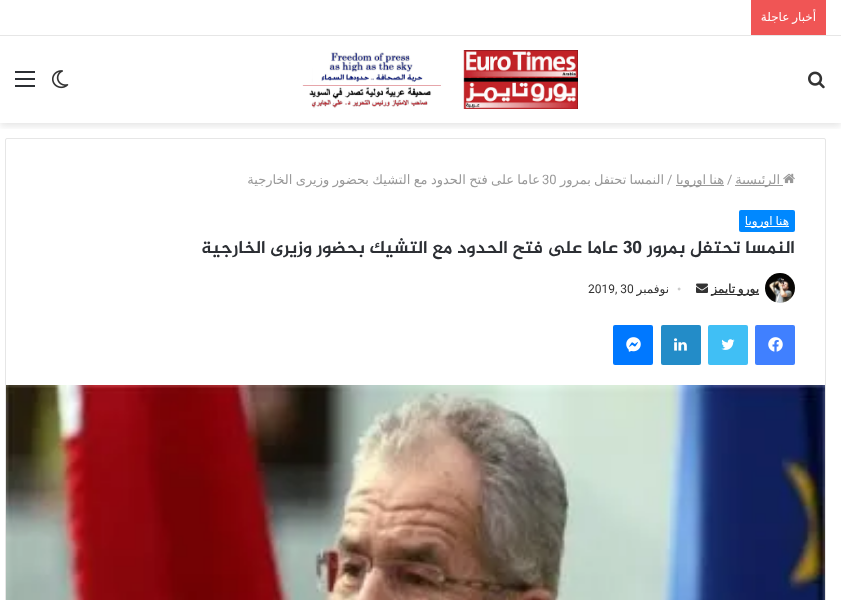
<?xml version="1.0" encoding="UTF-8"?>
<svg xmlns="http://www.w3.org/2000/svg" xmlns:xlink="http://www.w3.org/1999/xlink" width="841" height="600">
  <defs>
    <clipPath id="clip1"><rect x="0" y="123" width="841" height="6" /></clipPath>
  </defs>
  <rect width="100%" height="100%" fill="#ffffff" />
  <g clip-path="url(#clip1)">
    <rect y="39" width="841" height="87" fill="#000000" fill-opacity="0.1" filter="blur(3.5px)" />
  </g>
  <rect y="35" width="841" height="1" fill="#e6e6e6" />
  <rect x="751" width="75" height="35" fill="#f05555" />
  <image x="808" y="71" width="17" height="18" xlink:href="image1.png" />
  <image x="302" y="50" width="276" height="59" xlink:href="image2.png" />
  <image x="52" y="70" width="17" height="19" xlink:href="image3.png" />
  <rect x="15" y="78" width="20" height="2" fill="#2c2f34" />
  <rect x="15" y="71" width="20" height="2" fill="#2c2f34" />
  <rect x="15" y="85" width="20" height="2" fill="#2c2f34" />
  <rect x="5.5" y="138.5" width="820" height="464" rx="1.5" fill="none" stroke="#e6e6e6" />
  <image x="783" y="173" width="12" height="11" xlink:href="image4.png" />
  <rect x="735" y="185" width="48" height="1" fill="#999999" />
  <rect x="676" y="185" width="48" height="1" fill="#999999" />
  <rect x="739" y="210" width="56" height="22" rx="2" fill="#0088ff" />
  <rect x="745" y="226" width="44" height="1" fill="#ffffff" />
  <image x="765" y="273" width="30" height="30" xlink:href="image5.png" />
  <rect x="711" y="294" width="48" height="1" fill="#333333" />
  <image x="696" y="283" width="12" height="10" xlink:href="image6.png" />
  <rect x="755" y="325" width="40" height="40" rx="2" fill="#4080ff" />
  <image x="768" y="337" width="15" height="15" xlink:href="image7.png" />
  <rect x="708" y="325" width="40" height="40" rx="2" fill="#40bff5" />
  <image x="721" y="339" width="14" height="11" xlink:href="image8.png" />
  <rect x="661" y="325" width="40" height="40" rx="2" fill="#238cc8" />
  <image x="674" y="338" width="13" height="13" xlink:href="image9.png" />
  <rect x="613" y="325" width="40" height="40" rx="2" fill="#0078ff" />
  <image x="626" y="337" width="15" height="15" xlink:href="image10.png" />
  <image x="6" y="385" width="819" height="215" xlink:href="image11.png" />
  <text x="816" y="21" word-spacing="-1" style="font-family: DejaVu Sans; font-size: 12px; direction: rtl; fill: #ffffff">أخبار عاجلة</text>
  <text x="780" y="184" style="font-family: DejaVu Sans; font-size: 13px; direction: rtl; fill: #999999">الرئيسية</text>
  <text x="727" y="184" style="font-family: Roboto; font-size: 13px; fill: #999999">/</text>
  <text x="724" y="184" word-spacing="-1" style="font-family: DejaVu Sans; font-size: 13px; direction: rtl; fill: #999999">هنا اوروبا</text>
  <text x="667" y="184" style="font-family: Roboto; font-size: 13px; fill: #999999">/</text>
  <text x="664" y="184" word-spacing="-1" style="font-family: DejaVu Sans; font-size: 13px; direction: rtl; fill: #999999">النمسا تحتفل بمرور</text>
  <text x="540" y="184" word-spacing="-0.75" style="font-family: DejaVu Sans; font-size: 13px; direction: rtl; fill: #999999">عاما على فتح الحدود مع التشيك بحضور وزيرى الخارجية</text>
  <text x="542" y="184" style="font-family: Roboto; font-size: 13px; fill: #999999">30</text>
  <text x="789" y="225" word-spacing="-1" style="font-family: DejaVu Sans; font-size: 12px; direction: rtl; fill: #ffffff">هنا اوروبا</text>
  <text x="795" y="253" style="font-family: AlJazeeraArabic; font-size: 18px; font-weight: bold; direction: rtl; fill: #2c2f34">النمسا تحتفل بمرور</text>
  <text x="623" y="253" style="font-family: AlJazeeraArabic; font-size: 18px; font-weight: bold; fill: #2c2f34">30</text>
  <text x="618" y="253" style="font-family: AlJazeeraArabic; font-size: 18px; font-weight: bold; direction: rtl; fill: #2c2f34">عاما على فتح الحدود مع التشيك بحضور وزيرى الخارجية</text>
  <text x="759" y="293" word-spacing="-1" style="font-family: DejaVu Sans; font-size: 12px; font-weight: bold; direction: rtl; fill: #333333">يورو تايمز</text>
  <text x="677" y="293" style="font-family: Liberation Serif; font-size: 12px; fill: #cccccc">•</text>
  <text x="669" y="293" style="font-family: DejaVu Sans; font-size: 12px; direction: rtl; fill: #333333">نوفمبر</text>
  <text x="588" y="293" style="font-family: Roboto; font-size: 12px; fill: #333333">2019, 30</text>
</svg>
